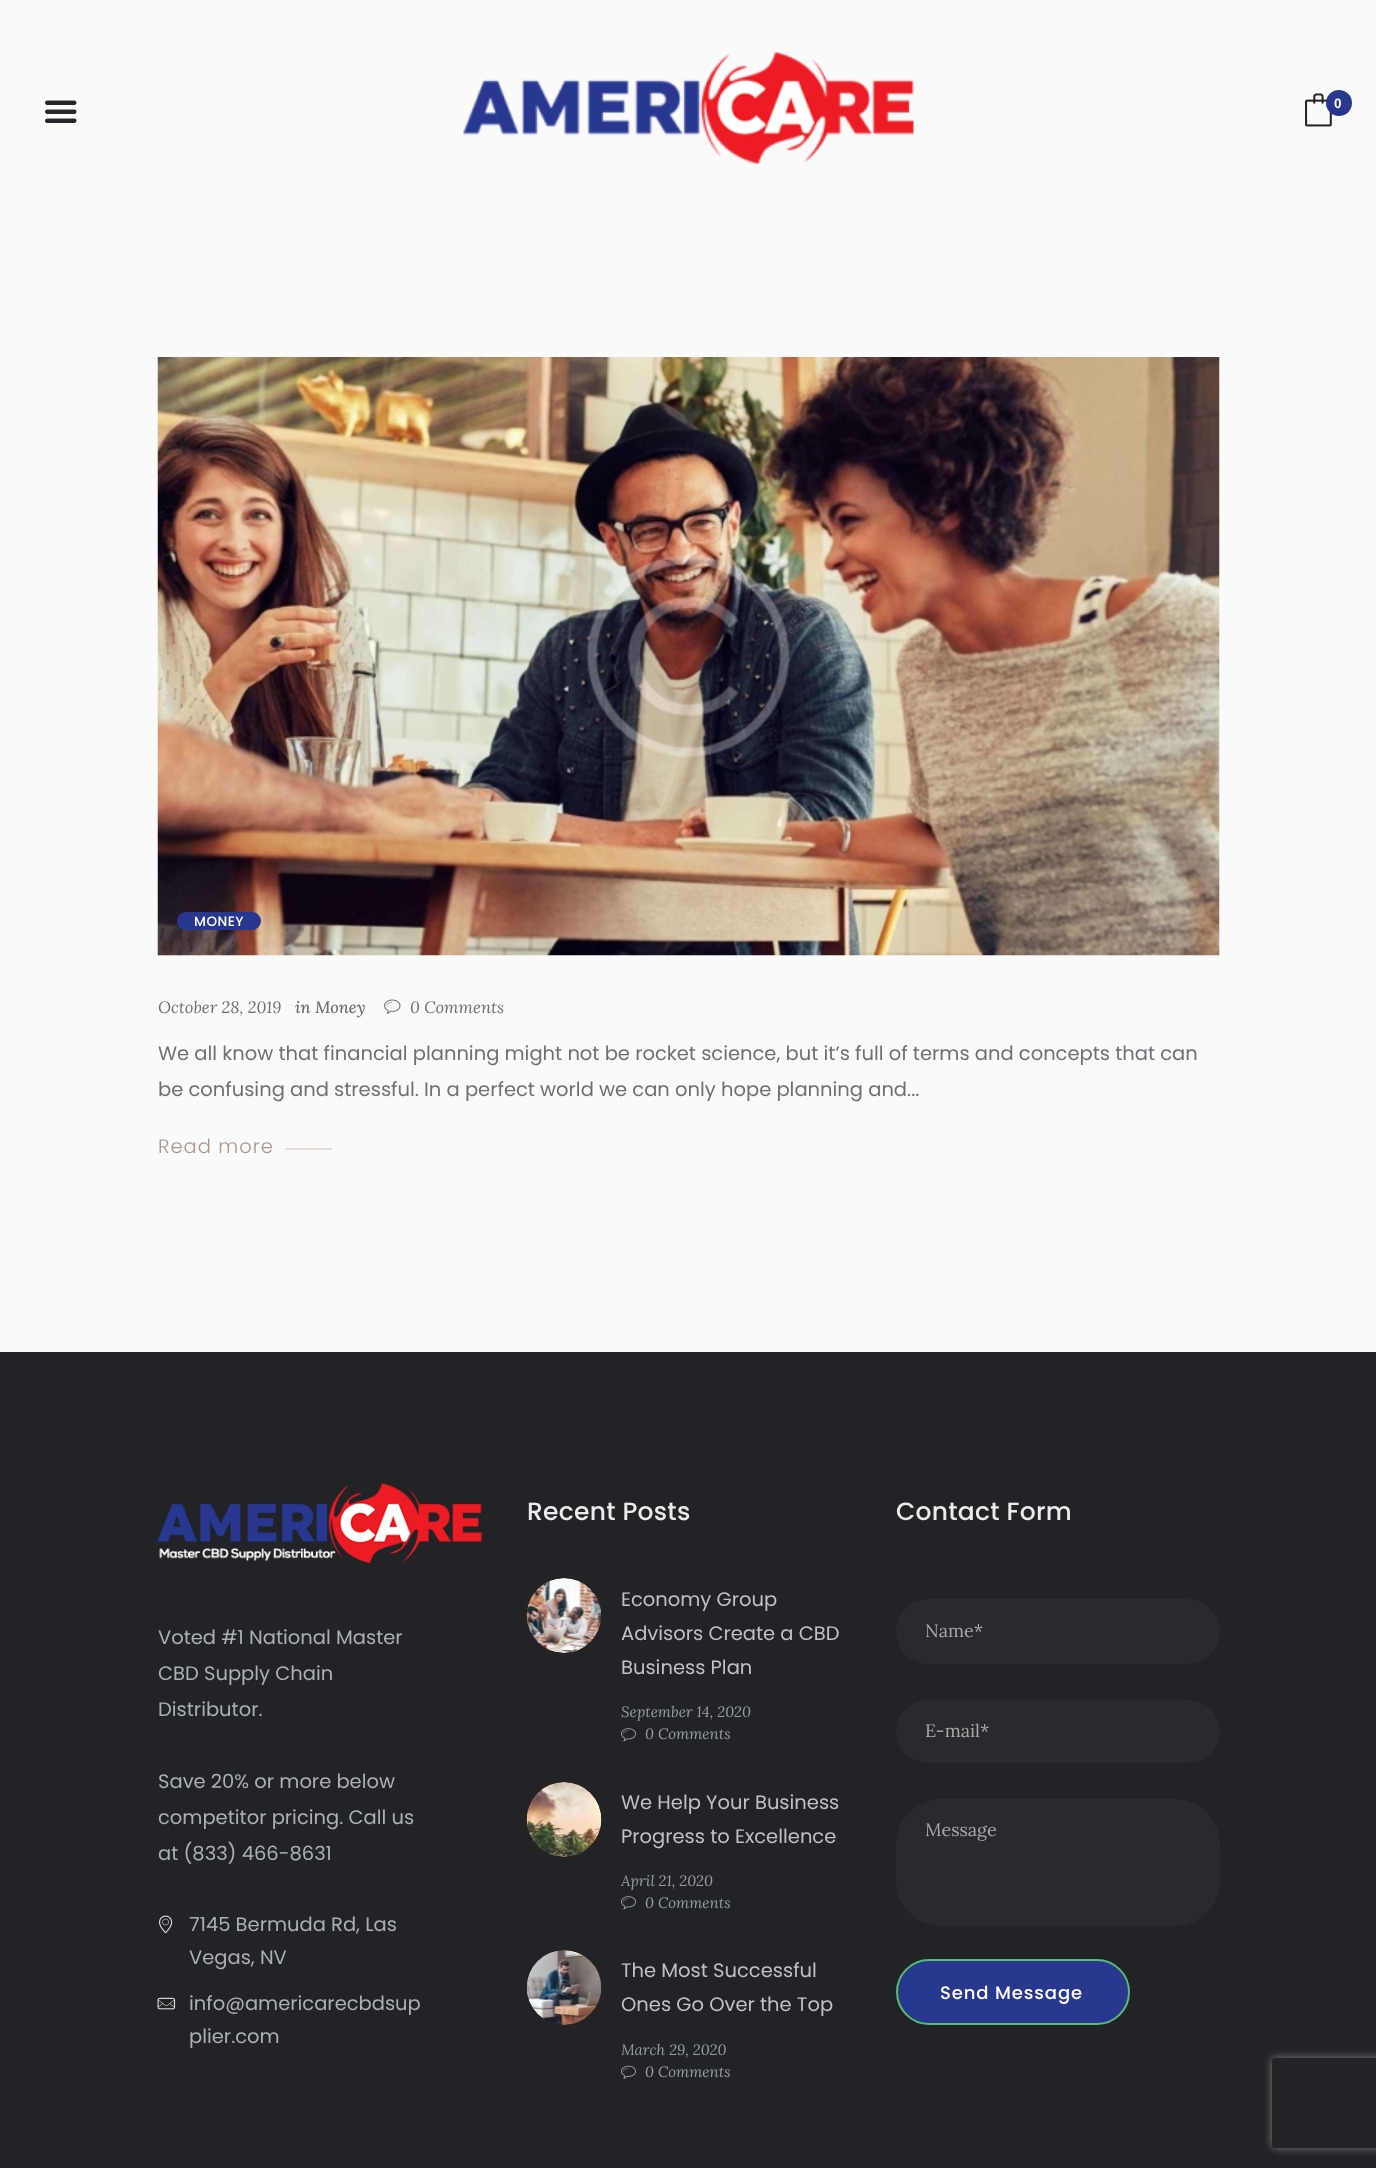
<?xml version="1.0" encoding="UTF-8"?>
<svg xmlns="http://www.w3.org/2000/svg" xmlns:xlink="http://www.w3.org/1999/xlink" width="1376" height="2168">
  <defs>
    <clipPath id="clip1"><path d="M 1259 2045 h 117 v 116 h -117 z m 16 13 h 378 c 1.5 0 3 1.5 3 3 v 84 c 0 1.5 -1.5 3 -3 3 h -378 c -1.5 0 -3 -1.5 -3 -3 v -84 c 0 -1.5 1.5 -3 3 -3 z" clip-rule="evenodd" /></clipPath>
  </defs>
  <rect width="100%" height="100%" fill="#fafafa" />
  <image x="45" y="100" width="32" height="23" xlink:href="image1.png" />
  <image x="463" y="52" width="451" height="112" xlink:href="image2.png" />
  <image x="1305" y="93" width="27" height="34" xlink:href="image3.png" />
  <circle cx="1339" cy="103" r="13" fill="#29388f" />
  <image x="157" y="357" width="1063" height="599" xlink:href="image4.png" />
  <rect x="177" y="912" width="84" height="18" rx="9" fill="#29388f" />
  <image x="384" y="999" width="17" height="15" xlink:href="image5.png" />
  <rect x="285" y="1148" width="47" height="2" fill="#e5ded8" />
  <rect y="1352" width="1376" height="816" fill="#222326" />
  <image x="157" y="1483" width="325" height="80" xlink:href="image6.png" />
  <image x="159" y="1915" width="14" height="19" xlink:href="image7.png" />
  <image x="157" y="1997" width="19" height="13" xlink:href="image8.png" />
  <image x="526" y="1578" width="76" height="75" xlink:href="image9.png" />
  <image x="621" y="1728" width="15" height="14" xlink:href="image10.png" />
  <image x="526" y="1782" width="76" height="75" xlink:href="image11.png" />
  <image x="621" y="1896" width="15" height="14" xlink:href="image10.png" />
  <image x="526" y="1950" width="76" height="75" xlink:href="image12.png" />
  <image x="621" y="2065" width="15" height="14" xlink:href="image13.png" />
  <rect x="896" y="1599" width="324" height="65" rx="32.5" fill="#292a2e" />
  <rect x="896" y="1700" width="324" height="63" rx="31.5" fill="#292a2e" />
  <rect x="896" y="1799" width="324" height="127" rx="45" fill="#292a2e" />
  <rect x="897" y="1960" width="232" height="64" rx="32" fill="#29388f" stroke="#54be73" stroke-width="2" />
  <g clip-path="url(#clip1)">
    <rect x="1272" y="2058" width="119" height="90" rx="3" fill="#808080" filter="blur(4px)" />
  </g>
  <text x="1334" y="108" style="font-family: Liberation Sans; font-size: 13.5px; font-weight: bold; fill: #ffffff">0</text>
  <text x="194" y="926" style="font-family: Poppins; font-size: 13.5px; font-weight: 500; letter-spacing: 0.5px; fill: #ffffff">MONEY</text>
  <text x="158" y="1013" style="font-family: Lora; font-size: 16.5px; font-style: italic; fill: #716f75">October 28, 2019</text>
  <text x="295" y="1013" style="font-family: Lora; font-size: 16.5px; font-weight: 500; font-style: italic; fill: #716f75">in</text>
  <text x="315" y="1013" style="font-family: Lora; font-size: 16.5px; font-weight: 500; font-style: italic; fill: #716f75">Money</text>
  <text x="410" y="1013" style="font-family: Lora; font-size: 16.5px; font-style: italic; fill: #716f75">0 Comments</text>
  <text x="158" y="1060" style="font-family: Poppins; font-size: 19.5px; fill: #716f75">We all know that financial planning might not be rocket science, but it’s full of terms and concepts that can</text>
  <text x="158" y="1096" style="font-family: Poppins; font-size: 19.5px; fill: #716f75">be confusing and stressful. In a perfect world we can only hope planning and...</text>
  <text x="158" y="1153" style="font-family: Poppins; font-size: 19.5px; font-weight: 300; letter-spacing: 1px; fill: #ab9787">Read more</text>
  <text x="158" y="1644" style="font-family: Poppins; font-size: 19.5px; fill: #aab0b6">Voted #1 National Master</text>
  <text x="158" y="1680" style="font-family: Poppins; font-size: 19.5px; fill: #aab0b6">CBD Supply Chain</text>
  <text x="158" y="1716" style="font-family: Poppins; font-size: 19.5px; fill: #aab0b6">Distributor.</text>
  <text x="158" y="1788" style="font-family: Poppins; font-size: 19.5px; fill: #aab0b6">Save 20% or more below</text>
  <text x="158" y="1824" style="font-family: Poppins; font-size: 19.5px; fill: #aab0b6">competitor pricing. Call us</text>
  <text x="158" y="1860" style="font-family: Poppins; font-size: 19.5px; fill: #aab0b6">at (833) 466-8631</text>
  <text x="189" y="1931" style="font-family: Poppins; font-size: 19.5px; fill: #aab0b6">7145 Bermuda Rd, Las</text>
  <text x="189" y="1964" style="font-family: Poppins; font-size: 19.5px; fill: #aab0b6">Vegas, NV</text>
  <text x="189" y="2010" style="font-family: Poppins; font-size: 19.5px; fill: #aab0b6">info@americarecbdsup</text>
  <text x="189" y="2043" style="font-family: Poppins; font-size: 19.5px; fill: #aab0b6">plier.com</text>
  <text x="527" y="1520" style="font-family: Poppins; font-size: 25px; font-weight: 500; letter-spacing: 0.25px; fill: #ebebeb">Recent Posts</text>
  <text x="621" y="1606" style="font-family: Poppins; font-size: 19.5px; fill: #c2c0c4">Economy Group</text>
  <text x="621" y="1640" style="font-family: Poppins; font-size: 19.5px; fill: #c2c0c4">Advisors Create a CBD</text>
  <text x="621" y="1674" style="font-family: Poppins; font-size: 19.5px; fill: #c2c0c4">Business Plan</text>
  <text x="621" y="1717" style="font-family: Lora; font-size: 15px; font-style: italic; fill: #969da3">September 14, 2020</text>
  <text x="645" y="1739" style="font-family: Lora; font-size: 15px; font-style: italic; fill: #969da3">0 Comments</text>
  <text x="621" y="1809" style="font-family: Poppins; font-size: 19.5px; fill: #c2c0c4">We Help Your Business</text>
  <text x="621" y="1843" style="font-family: Poppins; font-size: 19.5px; fill: #c2c0c4">Progress to Excellence</text>
  <text x="621" y="1886" style="font-family: Lora; font-size: 15px; font-style: italic; fill: #969da3">April 21, 2020</text>
  <text x="645" y="1908" style="font-family: Lora; font-size: 15px; font-style: italic; fill: #969da3">0 Comments</text>
  <text x="621" y="1977" style="font-family: Poppins; font-size: 19.5px; fill: #c2c0c4">The Most Successful</text>
  <text x="621" y="2011" style="font-family: Poppins; font-size: 19.5px; fill: #c2c0c4">Ones Go Over the Top</text>
  <text x="621" y="2055" style="font-family: Lora; font-size: 15px; font-style: italic; fill: #969da3">March 29, 2020</text>
  <text x="645" y="2077" style="font-family: Lora; font-size: 15px; font-style: italic; fill: #969da3">0 Comments</text>
  <text x="896" y="1520" style="font-family: Poppins; font-size: 25px; font-weight: 500; letter-spacing: 0.25px; fill: #ebebeb">Contact Form</text>
  <text x="925" y="1637" style="font-family: Lora; font-size: 18px; fill: #aaaaaa">Name*</text>
  <text x="925" y="1737" style="font-family: Lora; font-size: 18px; fill: #aaaaaa">E-mail*</text>
  <text x="925" y="1836" style="font-family: Lora; font-size: 18px; fill: #aaaaaa">Message</text>
  <text x="940" y="1999" style="font-family: Poppins; font-size: 18px; font-weight: 500; letter-spacing: 0.9px; fill: #ffffff">Send Message</text>
</svg>
